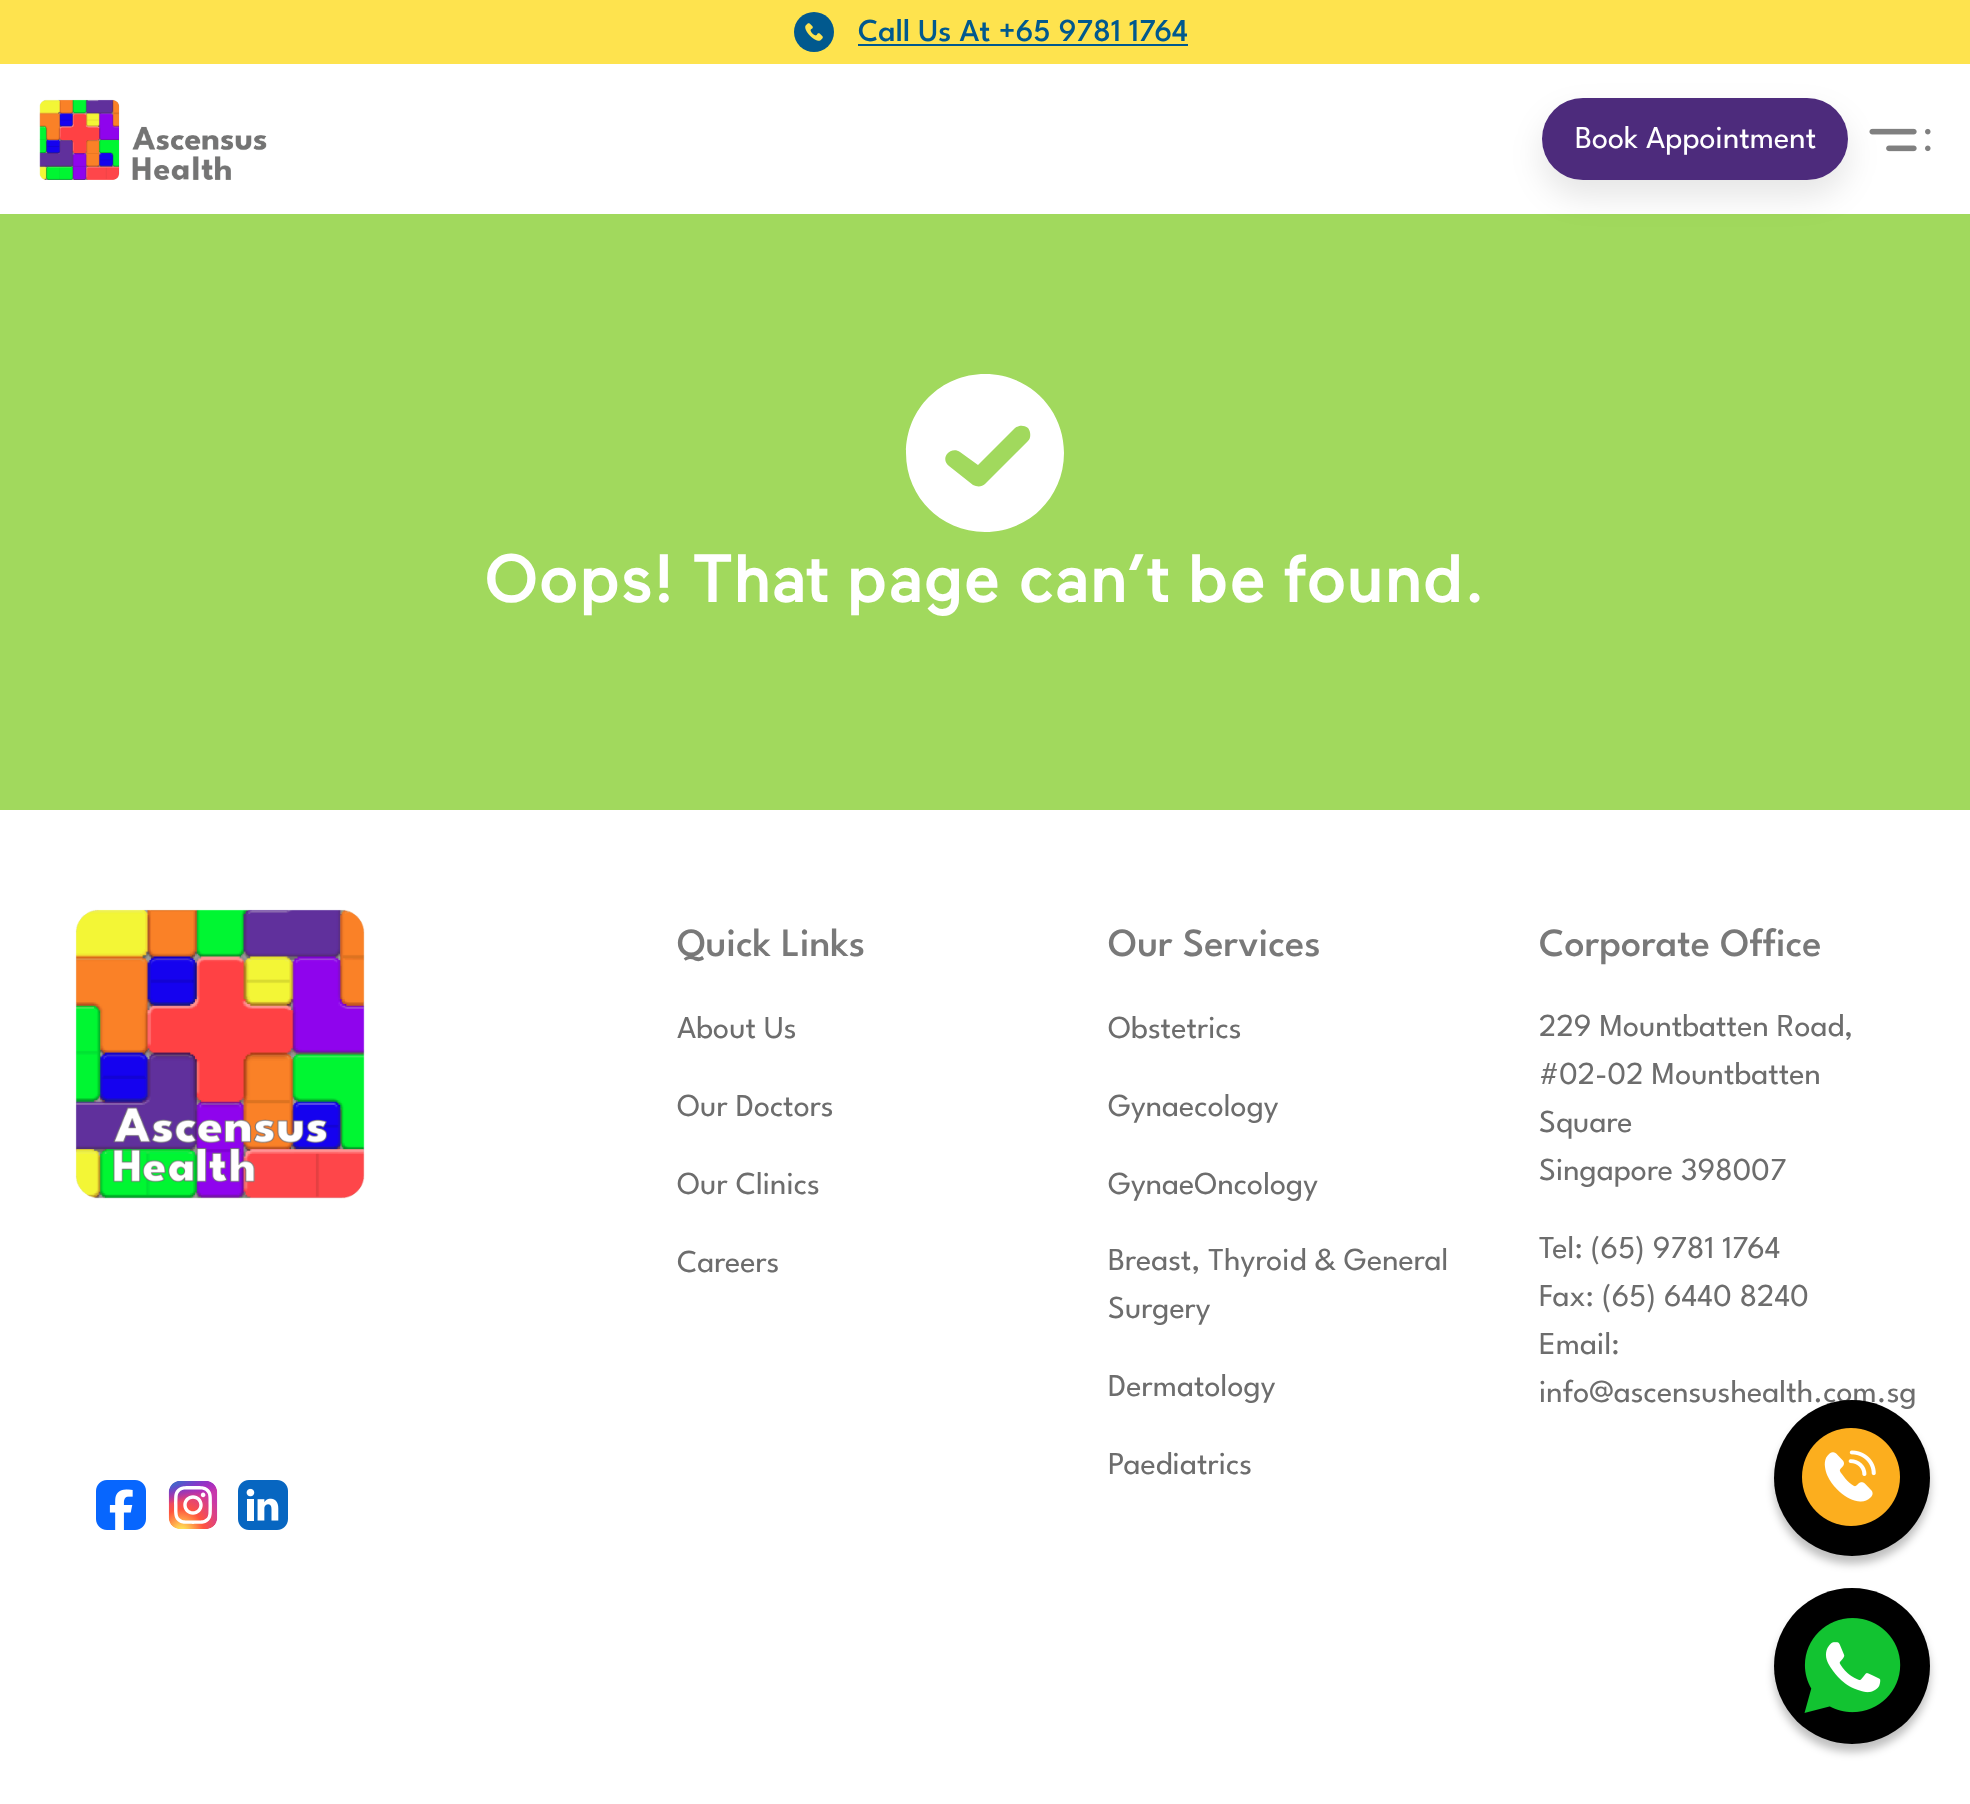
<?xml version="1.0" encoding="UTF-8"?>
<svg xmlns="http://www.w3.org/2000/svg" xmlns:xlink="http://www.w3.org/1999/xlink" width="1970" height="1804">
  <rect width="100%" height="100%" fill="#ffffff" />
  <rect width="1970" height="64" fill="#fee34e" />
  <circle cx="814" cy="32" r="20" fill="#01598e" />
  <image x="805" y="23" width="18" height="18" xlink:href="image1.png" />
  <rect x="858" y="44" width="330" height="2" fill="#01598e" />
  <image x="39" y="99" width="228" height="81" xlink:href="image2.png" />
  <image x="1869" y="128" width="62" height="24" xlink:href="image3.png" />
  <rect y="214" width="1970" height="596" fill="#a1d95d" />
  <rect x="1542" y="114" width="306" height="82" rx="41" fill="#000000" fill-opacity="0.1" filter="blur(16px)" />
  <rect x="1542" y="98" width="306" height="82" rx="41" fill="#4d2b7c" />
  <path d="M 985 532 c 44 0 79 -35 79 -79 c 0 -44 -35 -79 -79 -79 c -44 0 -79 35 -79 79 c 0 44 35 79 79 79 z m 43 -91 c 3 -3 3 -9 0 -13 c -4 -3 -9 -3 -13 0 l -37 37 l -18 -13 c -4 -3 -10 -2 -13 2 c -3 4 -2 9 2 12 l 24 19 c 4 2 9 2 12 -1 z" fill="#ffffff" fill-rule="evenodd" />
  <image x="75" y="909" width="290" height="290" xlink:href="image4.png" />
  <image x="96" y="1480" width="50" height="50" xlink:href="image5.png" />
  <image x="168" y="1481" width="50" height="48" xlink:href="image6.png" />
  <image x="238" y="1480" width="50" height="50" xlink:href="image7.png" />
  <rect x="1774" y="1408" width="156" height="156" rx="78" fill="#000000" fill-opacity="0.25" filter="blur(4px)" />
  <rect x="1774" y="1596" width="156" height="156" rx="78" fill="#000000" fill-opacity="0.25" filter="blur(4px)" />
  <circle cx="1852" cy="1666" r="78" fill="#000000" />
  <image x="1804" y="1618" width="97" height="95" xlink:href="image9.png" />
  <text x="858" y="41" style="font-family: League Spartan; font-size: 32px; font-weight: 500; fill: #01598e">Call Us At +65 9781 1764</text>
  <text x="1575" y="148" style="font-family: League Spartan; font-size: 32px; fill: #ffffff">Book Appointment</text>
  <text x="484" y="602" style="font-family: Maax; font-size: 68px; font-weight: 500; fill: #ffffff">Oops! That page can’t be found.</text>
  <text x="677" y="956" style="font-family: League Spartan; font-size: 40px; font-weight: 500; fill: #797979">Quick Links</text>
  <text x="677" y="1038" style="font-family: League Spartan; font-size: 32px; fill: #6d6d6d">About Us</text>
  <text x="677" y="1116" style="font-family: League Spartan; font-size: 32px; fill: #6d6d6d">Our Doctors</text>
  <text x="677" y="1194" style="font-family: League Spartan; font-size: 32px; fill: #6d6d6d">Our Clinics</text>
  <text x="677" y="1272" style="font-family: League Spartan; font-size: 32px; fill: #6d6d6d">Careers</text>
  <text x="1108" y="956" style="font-family: League Spartan; font-size: 40px; font-weight: 500; fill: #797979">Our Services</text>
  <text x="1108" y="1038" style="font-family: League Spartan; font-size: 32px; fill: #6d6d6d">Obstetrics</text>
  <text x="1108" y="1116" style="font-family: League Spartan; font-size: 32px; fill: #6d6d6d">Gynaecology</text>
  <text x="1108" y="1194" style="font-family: League Spartan; font-size: 32px; fill: #6d6d6d">GynaeOncology</text>
  <text x="1108" y="1270" style="font-family: League Spartan; font-size: 32px; fill: #6d6d6d">Breast, Thyroid &amp; General</text>
  <text x="1108" y="1318" style="font-family: League Spartan; font-size: 32px; fill: #6d6d6d">Surgery</text>
  <text x="1108" y="1396" style="font-family: League Spartan; font-size: 32px; fill: #6d6d6d">Dermatology</text>
  <text x="1108" y="1474" style="font-family: League Spartan; font-size: 32px; fill: #6d6d6d">Paediatrics</text>
  <text x="1539" y="956" style="font-family: League Spartan; font-size: 40px; font-weight: 500; fill: #797979">Corporate Office</text>
  <text x="1539" y="1036" style="font-family: League Spartan; font-size: 32px; fill: #6d6d6d">229 Mountbatten Road,</text>
  <text x="1539" y="1084" style="font-family: League Spartan; font-size: 32px; fill: #6d6d6d">#02-02 Mountbatten</text>
  <text x="1539" y="1132" style="font-family: League Spartan; font-size: 32px; fill: #6d6d6d">Square</text>
  <text x="1539" y="1180" style="font-family: League Spartan; font-size: 32px; fill: #6d6d6d">Singapore 398007</text>
  <text x="1539" y="1258" style="font-family: League Spartan; font-size: 32px; fill: #6d6d6d">Tel: (65) 9781 1764</text>
  <text x="1539" y="1306" style="font-family: League Spartan; font-size: 32px; fill: #6d6d6d">Fax: (65) 6440 8240</text>
  <text x="1539" y="1354" style="font-family: League Spartan; font-size: 32px; fill: #6d6d6d">Email:</text>
  <text x="1539" y="1402" style="font-family: League Spartan; font-size: 32px; fill: #6d6d6d">info@ascensushealth.com.sg</text>
  <circle cx="1852" cy="1478" r="78" fill="#000000" />
  <image x="1802" y="1428" width="98" height="98" xlink:href="image8.png" />
</svg>
